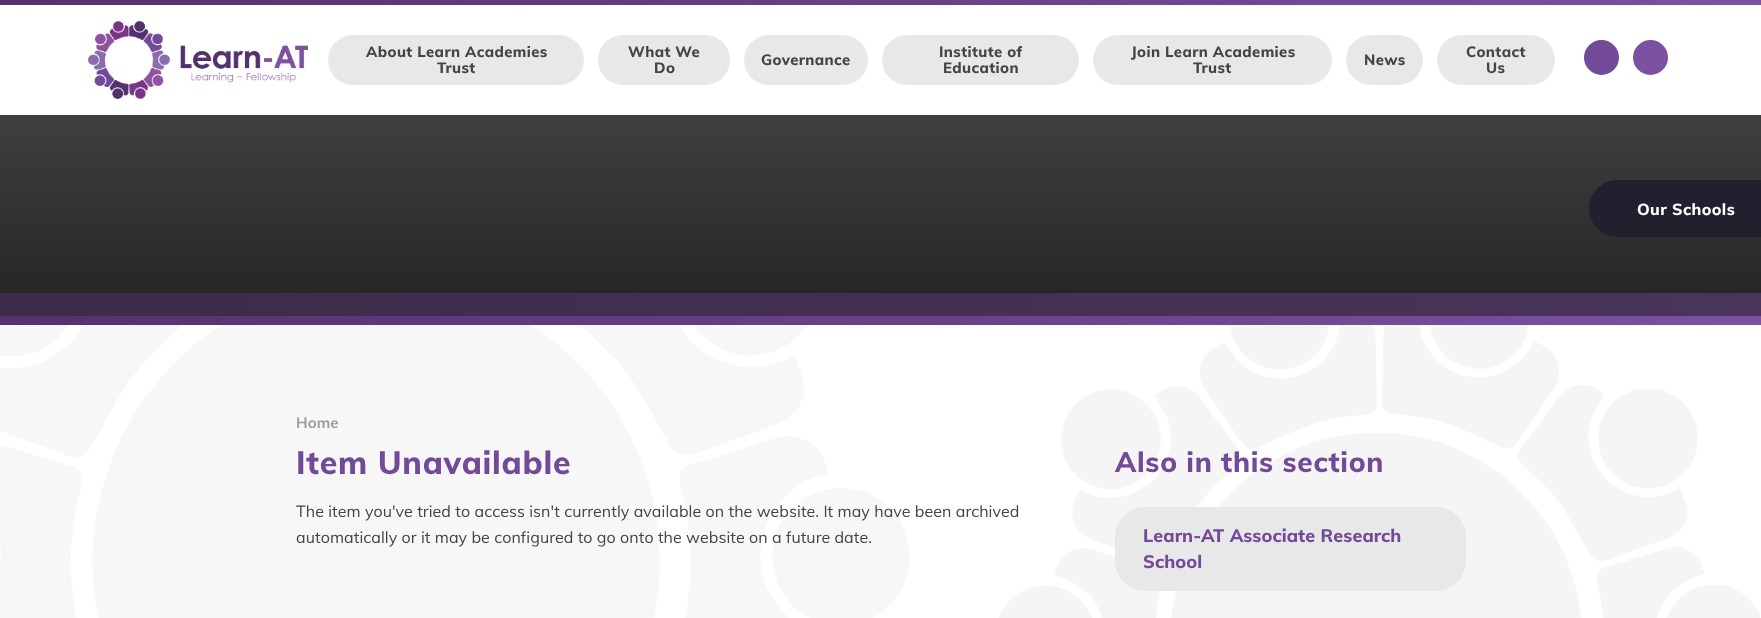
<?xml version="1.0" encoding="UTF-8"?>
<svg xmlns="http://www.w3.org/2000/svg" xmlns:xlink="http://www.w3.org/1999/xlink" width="1761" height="618">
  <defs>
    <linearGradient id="g1" gradientUnits="userSpaceOnUse" x1="0" y1="2.5" x2="1761" y2="2.5"><stop offset="0" stop-color="#53316f" /><stop offset="1" stop-color="#7d50a1" /></linearGradient>
    <linearGradient id="g2" gradientUnits="userSpaceOnUse" x1="881" y1="85" x2="881" y2="325"><stop offset="0" stop-color="#444444" /><stop offset="1" stop-color="#222222" /></linearGradient>
    <linearGradient id="g3" gradientUnits="userSpaceOnUse" x1="0" y1="321" x2="1761" y2="320"><stop offset="0" stop-color="#53316f" /><stop offset="1" stop-color="#7d50a1" /></linearGradient>
    <linearGradient id="g4" gradientUnits="userSpaceOnUse" x1="0" y1="305" x2="1761" y2="304"><stop offset="0" stop-color="#3c2b4b" /><stop offset="1" stop-color="#49345a" /></linearGradient>
  </defs>
  <rect width="100%" height="100%" fill="#ffffff" />
  <rect width="1761" height="5" fill="url(#g1)" />
  <image x="88" y="21" width="220" height="78" xlink:href="image1.png" />
  <rect x="328" y="35" width="256" height="50" rx="25" fill="#e8e8e8" />
  <rect x="598" y="35" width="132" height="50" rx="25" fill="#e8e8e8" />
  <rect x="744" y="35" width="124" height="50" rx="25" fill="#e8e8e8" />
  <rect x="882" y="35" width="197" height="50" rx="25" fill="#e8e8e8" />
  <rect x="1093" y="35" width="239" height="50" rx="25" fill="#e8e8e8" />
  <rect x="1346" y="35" width="77" height="50" rx="25" fill="#e8e8e8" />
  <rect x="1437" y="35" width="118" height="50" rx="25" fill="#e8e8e8" />
  <circle cx="1601.5" cy="57.5" r="20" fill="#734a97" stroke="#ffffff" stroke-width="5" />
  <circle cx="1650.5" cy="57.5" r="20" fill="#7d50a1" stroke="#ffffff" stroke-width="5" />
  <rect y="115" width="1761" height="178" fill="url(#g2)" />
  <path d="M 1617.5 180 h 143.5 v 57 h -143.5 c -15.5 0 -28.5 -13 -28.5 -28.5 c 0 -15.5 13 -28.5 28.5 -28.5 z" fill="#21202e" />
  <rect y="316" width="1761" height="9" fill="url(#g3)" />
  <rect y="293" width="1761" height="23" fill="url(#g4)" />
  <image x="0" y="325" width="909" height="293" xlink:href="image2.png" />
  <image x="999" y="325" width="761" height="293" xlink:href="image3.png" />
  <rect x="1115" y="507" width="351" height="84" rx="30" fill="#e8e8e8" />
  <text x="366" y="57" style="font-family: Muli; font-size: 14.9px; font-weight: 800; letter-spacing: 0.4px; fill: #444444">About Learn Academies</text>
  <text x="437" y="73" style="font-family: Muli; font-size: 14.9px; font-weight: 800; letter-spacing: 0.4px; fill: #444444">Trust</text>
  <text x="628" y="57" style="font-family: Muli; font-size: 14.9px; font-weight: 800; letter-spacing: 0.4px; fill: #444444">What We</text>
  <text x="654" y="73" style="font-family: Muli; font-size: 14.9px; font-weight: 800; letter-spacing: 0.4px; fill: #444444">Do</text>
  <text x="761" y="65" style="font-family: Muli; font-size: 14.9px; font-weight: 800; letter-spacing: 0.4px; fill: #444444">Governance</text>
  <text x="939" y="57" style="font-family: Muli; font-size: 14.9px; font-weight: 800; letter-spacing: 0.4px; fill: #444444">Institute of</text>
  <text x="943" y="73" style="font-family: Muli; font-size: 14.9px; font-weight: 800; letter-spacing: 0.4px; fill: #444444">Education</text>
  <text x="1131" y="57" style="font-family: Muli; font-size: 14.9px; font-weight: 800; letter-spacing: 0.4px; fill: #444444">Join Learn Academies</text>
  <text x="1193" y="73" style="font-family: Muli; font-size: 14.9px; font-weight: 800; letter-spacing: 0.4px; fill: #444444">Trust</text>
  <text x="1364" y="65" style="font-family: Muli; font-size: 14.9px; font-weight: 800; letter-spacing: 0.4px; fill: #444444">News</text>
  <text x="1466" y="57" style="font-family: Muli; font-size: 14.9px; font-weight: 800; letter-spacing: 0.4px; fill: #444444">Contact</text>
  <text x="1486" y="73" style="font-family: Muli; font-size: 14.9px; font-weight: 800; letter-spacing: 0.4px; fill: #444444">Us</text>
  <text x="1637" y="215" style="font-family: Muli; font-size: 16px; font-weight: 800; letter-spacing: 0.4px; fill: #ffffff">Our Schools</text>
  <text x="296" y="428" style="font-family: Muli; font-size: 15px; font-weight: bold; letter-spacing: 0.08px; fill: #9b9b9b">Home</text>
  <text x="296" y="474" style="font-family: Muli; font-size: 32px; font-weight: 800; letter-spacing: 0.75px; fill: #734a97">Item Unavailable</text>
  <text x="296" y="517" style="font-family: Muli; font-size: 16px; letter-spacing: 0.08px; fill: #444444">The item you've tried to access isn't currently available on the website. It may have been archived</text>
  <text x="296" y="543" style="font-family: Muli; font-size: 16px; letter-spacing: 0.08px; fill: #444444">automatically or it may be configured to go onto the website on a future date.</text>
  <text x="1115" y="472" style="font-family: Muli; font-size: 28px; font-weight: 800; letter-spacing: 0.7px; fill: #734a97">Also in this section</text>
  <text x="1143" y="542" style="font-family: Muli; font-size: 18px; font-weight: 800; letter-spacing: 0.08px; fill: #734a97">Learn-AT Associate Research</text>
  <text x="1143" y="568" style="font-family: Muli; font-size: 18px; font-weight: 800; letter-spacing: 0.08px; fill: #734a97">School</text>
</svg>
